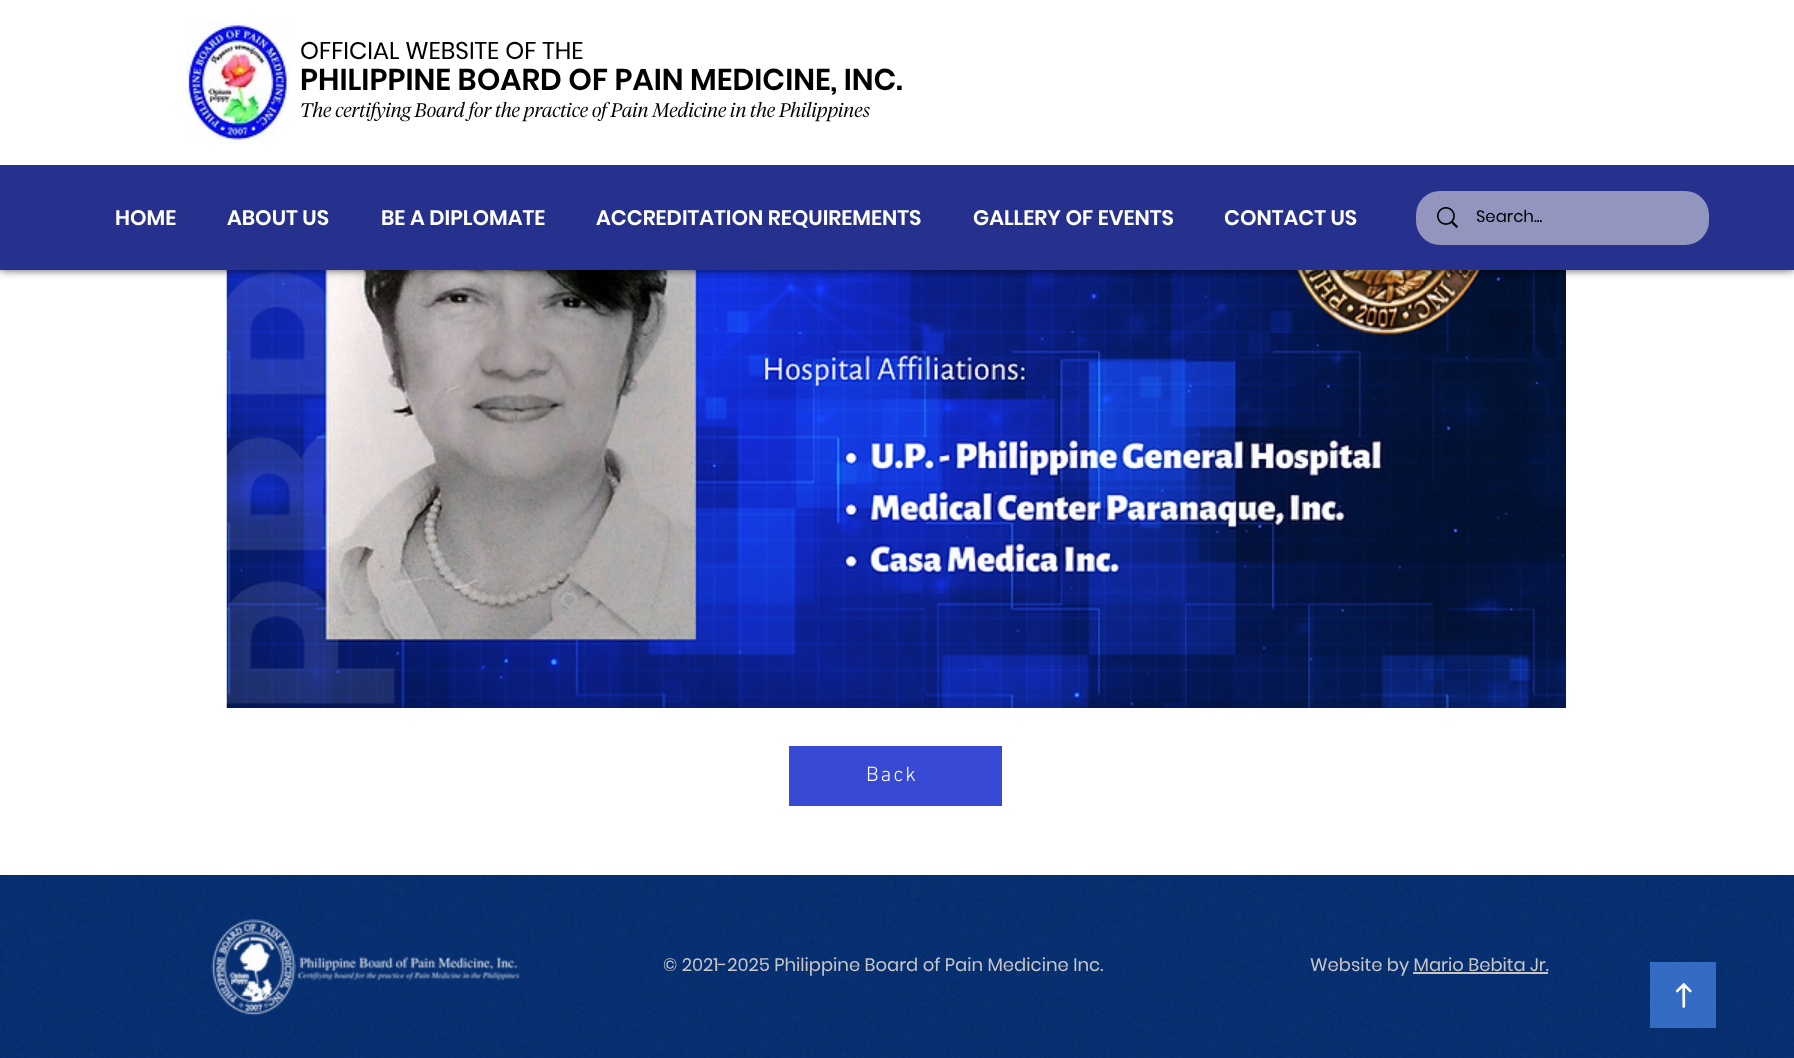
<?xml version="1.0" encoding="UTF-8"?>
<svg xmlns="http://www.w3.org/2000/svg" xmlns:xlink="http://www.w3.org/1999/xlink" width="1794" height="1058">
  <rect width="100%" height="100%" fill="#ffffff" />
  <image x="226" y="270" width="1340" height="438" xlink:href="image3.png" />
  <rect width="1794" height="270" fill="#000000" fill-opacity="0.7" filter="blur(4px)" />
  <rect y="165" width="1794" height="105" fill="#25318d" />
  <rect width="1794" height="165" fill="#ffffff" />
  <image x="186" y="19" width="104" height="122" xlink:href="image1.png" />
  <rect x="1416" y="191" width="293" height="54" rx="24" fill="#9296bf" />
  <image x="1437" y="207" width="21" height="21" xlink:href="image2.png" />
  <rect x="789" y="746" width="213" height="60" fill="#384ad3" />
  <rect y="875" width="1794" height="183" fill="#052f73" />
  <image x="0" y="874" width="1794" height="184" xlink:href="image4.png" />
  <image x="211" y="919" width="309" height="97" xlink:href="image5.png" />
  <rect x="1413" y="972" width="135" height="2" fill="#c7c7c7" />
  <rect x="1650" y="962" width="66" height="66" fill="#346cc4" />
  <image x="1675" y="982" width="17" height="26" xlink:href="image6.png" />
  <text x="300" y="59" style="font-family: Poppins; font-size: 24px; fill: #000000">OFFICIAL WEBSITE OF THE</text>
  <text x="300" y="90" style="font-family: Poppins; font-size: 30px; font-weight: 600; fill: #000000">PHILIPPINE BOARD OF PAIN MEDICINE, INC.</text>
  <text x="300" y="117" style="font-family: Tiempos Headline; font-size: 19.5px; font-weight: 300; font-style: italic; fill: #000000">The certifying Board for the practice of Pain Medicine in the Philippines</text>
  <text x="115" y="225" style="font-family: Poppins; font-size: 21px; font-weight: 600; fill: #ffffff">HOME</text>
  <text x="227" y="225" style="font-family: Poppins; font-size: 21px; font-weight: 600; fill: #ffffff">ABOUT US</text>
  <text x="381" y="225" style="font-family: Poppins; font-size: 21px; font-weight: 600; fill: #ffffff">BE A DIPLOMATE</text>
  <text x="596" y="225" style="font-family: Poppins; font-size: 21px; font-weight: 600; fill: #ffffff">ACCREDITATION REQUIREMENTS</text>
  <text x="973" y="225" style="font-family: Poppins; font-size: 21px; font-weight: 600; fill: #ffffff">GALLERY OF EVENTS</text>
  <text x="1224" y="225" style="font-family: Poppins; font-size: 21px; font-weight: 600; fill: #ffffff">CONTACT US</text>
  <text x="1476" y="222" style="font-family: Poppins; font-size: 16.5px; fill: #000000">Search...</text>
  <text x="866" y="781" style="font-family: 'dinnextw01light'; font-size: 21px; font-weight: 300; letter-spacing: 2px; fill: #ffffff">Back</text>
  <text x="663" y="971" style="font-family: Poppins; font-size: 18px; fill: #c7c7c7">© 2021-2025 Philippine Board of Pain Medicine Inc.</text>
  <text x="1310" y="971" style="font-family: Poppins; font-size: 18px; fill: #c7c7c7">Website by Mario Bebita Jr.</text>
</svg>
